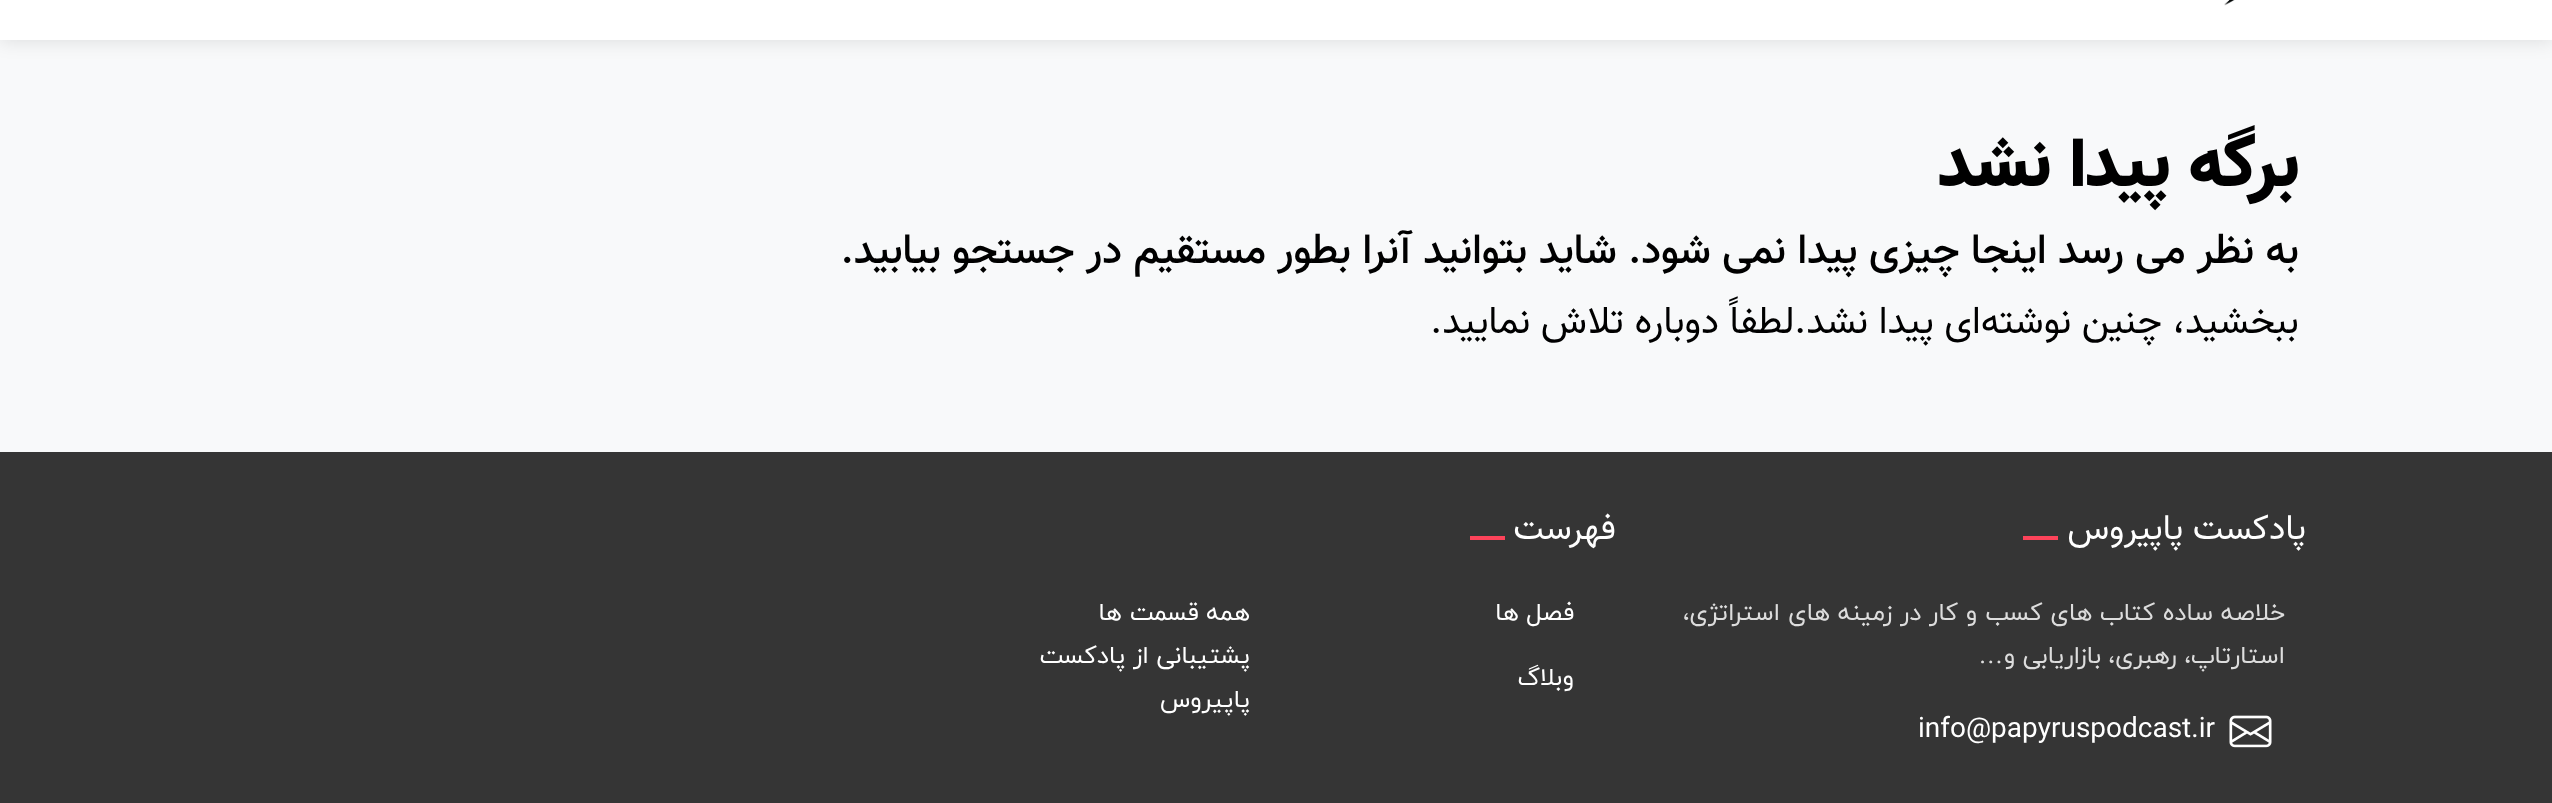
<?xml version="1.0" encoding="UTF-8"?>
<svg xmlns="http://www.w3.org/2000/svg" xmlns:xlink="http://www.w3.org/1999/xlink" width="2552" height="803">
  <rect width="100%" height="100%" fill="#f8f9fa" />
  <rect y="-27" width="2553" height="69" fill="#000000" fill-opacity="0.1" filter="blur(9px)" />
  <rect width="2552" height="40" fill="#ffffff" />
  <image x="2224" y="0" width="11" height="6" xlink:href="image1.png" />
  <rect y="452" width="2552" height="351" fill="#353535" />
  <rect x="2023" y="536" width="35" height="4" fill="#fd435a" />
  <image x="2229" y="715" width="43" height="33" xlink:href="image2.png" />
  <rect x="1470" y="536" width="35" height="4" fill="#fd435a" />
  <text x="2299" y="186" style="font-family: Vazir; font-size: 70px; font-weight: 900; direction: rtl; fill: #000000">برگه پیدا نشد</text>
  <text x="2299" y="263" style="font-family: Vazir; font-size: 42px; font-weight: 500; direction: rtl; fill: #000000">به نظر می رسد اینجا چیزی پیدا نمی شود. شاید بتوانید آنرا بطور مستقیم در جستجو بیابید.</text>
  <text x="2299" y="333" style="font-family: Vazir; font-size: 38.5px; direction: rtl; fill: #000000">ببخشید، چنین نوشته‌ای پیدا نشد.لطفاً دوباره تلاش نمایید.</text>
  <text x="2306" y="539" style="font-family: Vazir; font-size: 35px; direction: rtl; fill: #ffffff">پادکست پاپیروس</text>
  <text x="2285" y="620" style="font-family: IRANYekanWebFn; font-size: 24.5px; direction: rtl; fill: #dddddd">خلاصه ساده کتاب های کسب و کار در زمینه های استراتژی،</text>
  <text x="2285" y="663" style="font-family: IRANYekanWebFn; font-size: 24.5px; direction: rtl; fill: #dddddd">استارتاپ، رهبری، بازاریابی و</text>
  <text x="2003" y="663" style="font-family: Liberation Serif; font-size: 24.5px; direction: rtl; fill: #dddddd">…</text>
  <text x="1918" y="737" style="font-family: IRANYekanWebFn; font-size: 28px; fill: #ffffff">info@papyruspodcast.ir</text>
  <text x="1616" y="539" style="font-family: Vazir; font-size: 35px; direction: rtl; fill: #ffffff">فهرست</text>
  <text x="1574" y="620" style="font-family: IRANYekanWebFn; font-size: 24.5px; direction: rtl; fill: #ffffff">فصل ها</text>
  <text x="1250" y="620" style="font-family: IRANYekanWebFn; font-size: 24.5px; direction: rtl; fill: #ffffff">همه قسمت ها</text>
  <text x="1574" y="685" style="font-family: IRANYekanWebFn; font-size: 24.5px; direction: rtl; fill: #ffffff">وبلاگ</text>
  <text x="1250" y="663" style="font-family: IRANYekanWebFn; font-size: 24.5px; direction: rtl; fill: #ffffff">پشتیبانی از پادکست</text>
  <text x="1250" y="707" style="font-family: IRANYekanWebFn; font-size: 24.5px; direction: rtl; fill: #ffffff">پاپیروس</text>
</svg>
